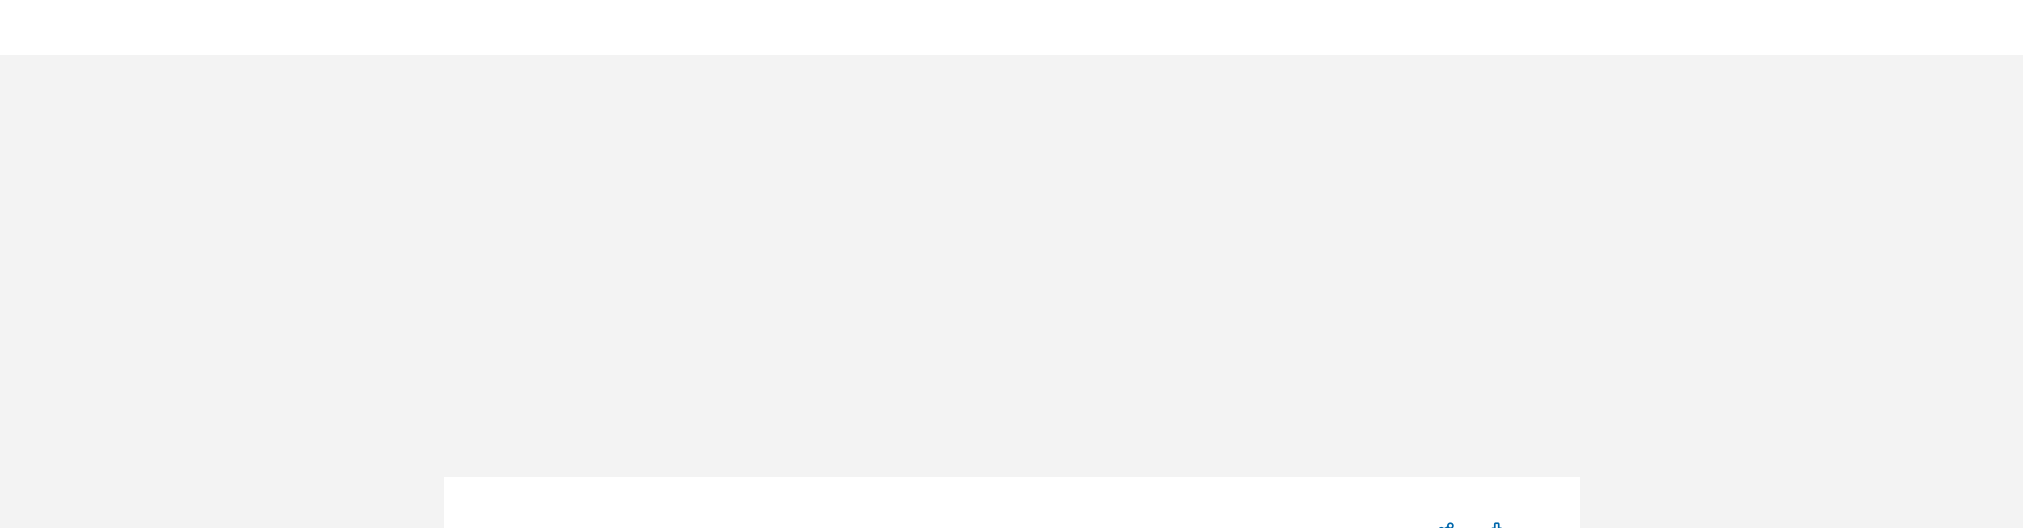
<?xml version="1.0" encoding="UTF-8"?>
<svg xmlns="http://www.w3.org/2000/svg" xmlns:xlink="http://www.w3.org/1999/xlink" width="2023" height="528">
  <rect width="100%" height="100%" fill="#ffffff" />
  <rect y="55" width="2023" height="473" fill="#f3f3f3" />
  <rect x="444" y="477" width="1136" height="51" fill="#ffffff" />
  <image x="1439" y="522" width="15" height="6" xlink:href="image1.png" />
  <image x="1491" y="522" width="11" height="6" xlink:href="image2.png" />
</svg>
